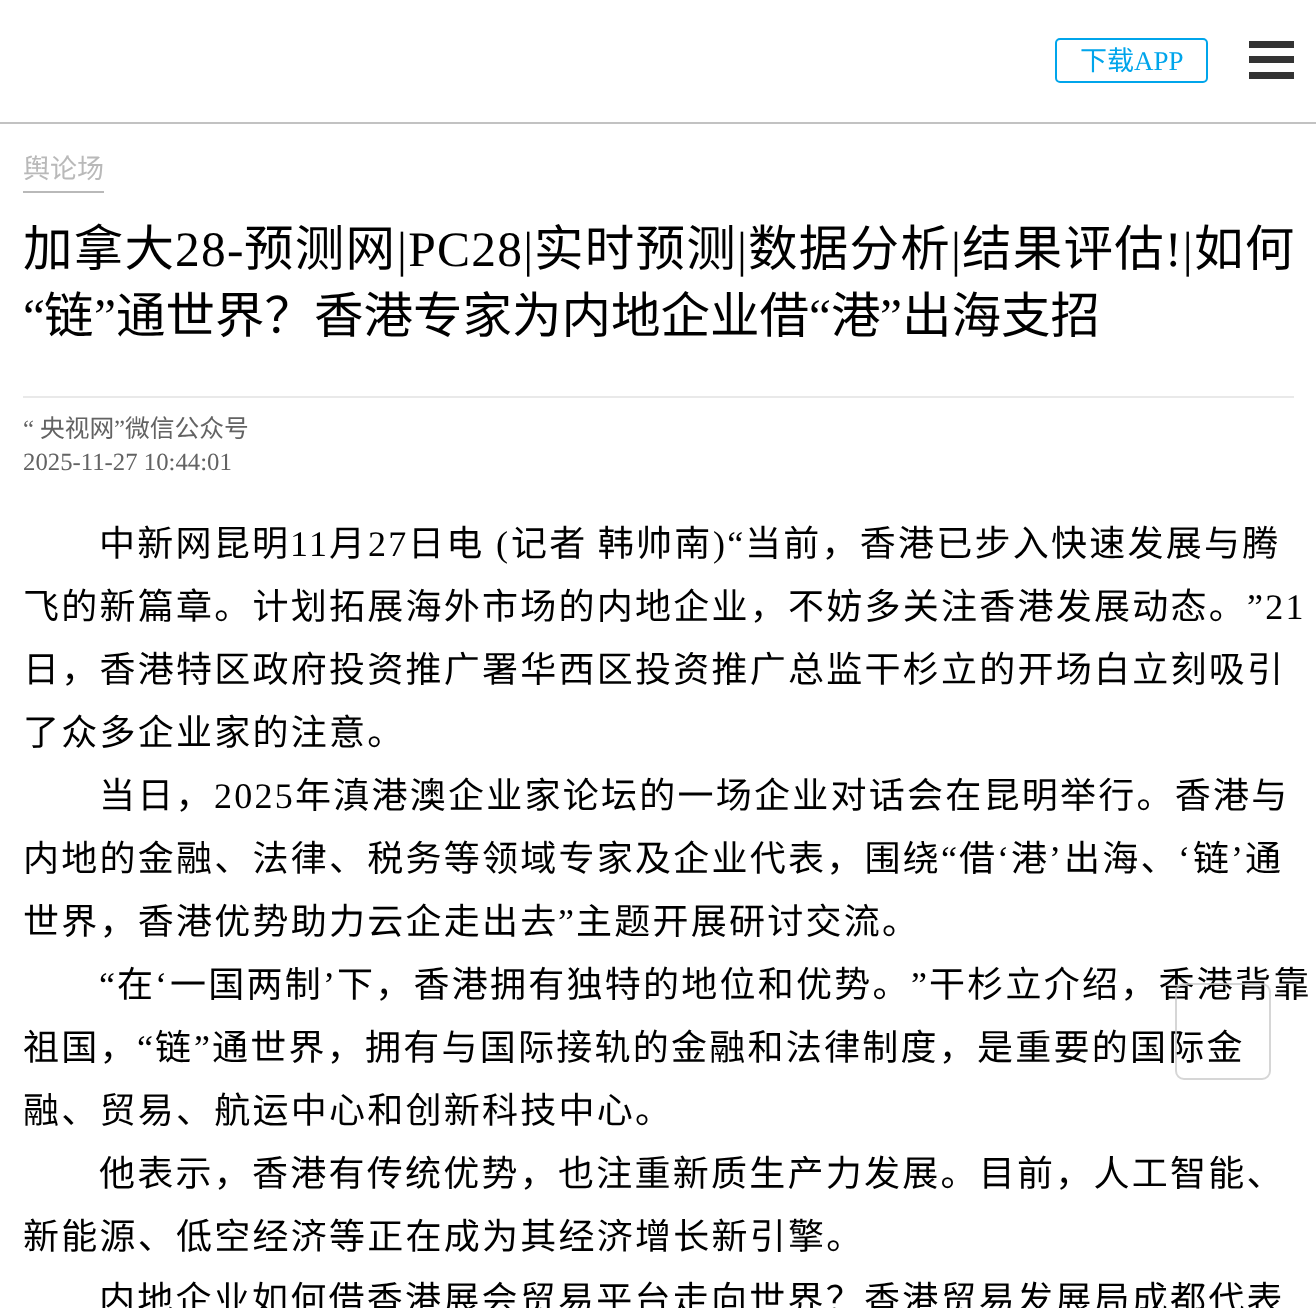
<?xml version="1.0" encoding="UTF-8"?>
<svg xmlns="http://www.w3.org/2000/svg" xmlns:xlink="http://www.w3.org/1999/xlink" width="1316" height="1308">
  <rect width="100%" height="100%" fill="#ffffff" />
  <rect x="1056" y="39" width="151" height="43" rx="4" fill="none" stroke="#00a5eb" stroke-width="2" />
  <rect x="1249" y="41" width="45" height="7" fill="#333333" />
  <rect x="1249" y="56" width="45" height="7" fill="#333333" />
  <rect x="1249" y="72" width="45" height="7" fill="#333333" />
  <rect y="122" width="1316" height="2" fill="#c2c2c2" />
  <rect x="23" y="191" width="81" height="2" fill="#b9b9b9" />
  <rect x="23" y="396" width="1271" height="2" fill="#e9e9e9" />
  <text x="1080" y="70" style="font-family: Noto Sans CJK SC; font-size: 27px; fill: #00a5eb">下载</text>
  <text x="1134" y="70" style="font-family: Liberation Serif; font-size: 27px; fill: #00a5eb">APP</text>
  <text x="23" y="178" style="font-family: Noto Sans CJK SC; font-size: 27px; fill: #b9b9b9">舆论场</text>
  <text x="23" y="266" style="font-family: Noto Sans CJK SC; font-size: 49.5px; letter-spacing: 1.25px; fill: #000000">加拿大</text>
  <text x="175" y="266" style="font-family: Liberation Serif; font-size: 49.5px; letter-spacing: 1.25px; fill: #000000">28-</text>
  <text x="244" y="266" style="font-family: Noto Sans CJK SC; font-size: 49.5px; letter-spacing: 1.25px; fill: #000000">预测网</text>
  <text x="397" y="266" style="font-family: Liberation Serif; font-size: 49.5px; letter-spacing: 1.25px; fill: #000000">|PC28|</text>
  <text x="534" y="266" style="font-family: Noto Sans CJK SC; font-size: 49.5px; letter-spacing: 1.25px; fill: #000000">实时预测</text>
  <text x="737" y="266" style="font-family: Liberation Serif; font-size: 49.5px; letter-spacing: 1.25px; fill: #000000">|</text>
  <text x="748" y="266" style="font-family: Noto Sans CJK SC; font-size: 49.5px; letter-spacing: 1.25px; fill: #000000">数据分析</text>
  <text x="951" y="266" style="font-family: Liberation Serif; font-size: 49.5px; letter-spacing: 1.25px; fill: #000000">|</text>
  <text x="962" y="266" style="font-family: Noto Sans CJK SC; font-size: 49.5px; letter-spacing: 1.25px; fill: #000000">结果评估</text>
  <text x="1165" y="266" style="font-family: Liberation Serif; font-size: 49.5px; letter-spacing: 1.25px; fill: #000000">!|</text>
  <text x="1194" y="266" style="font-family: Noto Sans CJK SC; font-size: 49.5px; letter-spacing: 1.25px; fill: #000000">如何</text>
  <text x="23" y="333" style="font-family: Liberation Serif; font-size: 49.5px; fill: #000000">“</text>
  <text x="44" y="333" style="font-family: Noto Sans CJK SC; font-size: 49.5px; fill: #000000">链</text>
  <text x="94" y="333" style="font-family: Liberation Serif; font-size: 49.5px; fill: #000000">”</text>
  <text x="116" y="333" style="font-family: Noto Sans CJK SC; font-size: 49.5px; fill: #000000">通世界？香港专家为内地企业借</text>
  <text x="809" y="333" style="font-family: Liberation Serif; font-size: 49.5px; fill: #000000">“</text>
  <text x="831" y="333" style="font-family: Noto Sans CJK SC; font-size: 49.5px; fill: #000000">港</text>
  <text x="880" y="333" style="font-family: Liberation Serif; font-size: 49.5px; fill: #000000">”</text>
  <text x="902" y="333" style="font-family: Noto Sans CJK SC; font-size: 49.5px; fill: #000000">出海支招</text>
  <text x="23" y="437" style="font-family: Liberation Serif; font-size: 24.75px; fill: #636363">“</text>
  <text x="40" y="437" style="font-family: Noto Sans CJK SC; font-size: 24.75px; fill: #636363">央视网</text>
  <text x="114" y="437" style="font-family: Liberation Serif; font-size: 24.75px; fill: #636363">”</text>
  <text x="125" y="437" style="font-family: Noto Sans CJK SC; font-size: 24.75px; fill: #636363">微信公众号</text>
  <text x="23" y="470" style="font-family: Liberation Serif; font-size: 24.75px; fill: #636363">2025-11-27 10:44:01</text>
  <text x="99" y="556" style="font-family: Noto Sans CJK SC; font-size: 36px; letter-spacing: 2.25px; fill: #000000">中新网昆明</text>
  <text x="290" y="556" style="font-family: Liberation Serif; font-size: 36px; letter-spacing: 2.25px; fill: #000000">11</text>
  <text x="329" y="556" style="font-family: Noto Sans CJK SC; font-size: 36px; letter-spacing: 2.25px; fill: #000000">月</text>
  <text x="368" y="556" style="font-family: Liberation Serif; font-size: 36px; letter-spacing: 2.25px; fill: #000000">27</text>
  <text x="408" y="556" style="font-family: Noto Sans CJK SC; font-size: 36px; letter-spacing: 2.25px; fill: #000000">日电</text>
  <text x="496" y="556" style="font-family: Liberation Serif; font-size: 36px; letter-spacing: 2.25px; fill: #000000">(</text>
  <text x="511" y="556" style="font-family: Noto Sans CJK SC; font-size: 36px; letter-spacing: 2.25px; fill: #000000">记者 韩帅南</text>
  <text x="713" y="556" style="font-family: Liberation Serif; font-size: 36px; letter-spacing: 2.25px; fill: #000000">)“</text>
  <text x="745" y="556" style="font-family: Noto Sans CJK SC; font-size: 36px; letter-spacing: 2.25px; fill: #000000">当前，香港已步入快速发展与腾</text>
  <text x="23" y="619" style="font-family: Noto Sans CJK SC; font-size: 36px; letter-spacing: 2.25px; fill: #000000">飞的新篇章。计划拓展海外市场的内地企业，不妨多关注香港发展动态。</text>
  <text x="1247" y="619" style="font-family: Liberation Serif; font-size: 36px; letter-spacing: 2.25px; fill: #000000">”21</text>
  <text x="23" y="682" style="font-family: Noto Sans CJK SC; font-size: 36px; letter-spacing: 2.25px; fill: #000000">日，香港特区政府投资推广署华西区投资推广总监干杉立的开场白立刻吸引</text>
  <text x="23" y="745" style="font-family: Noto Sans CJK SC; font-size: 36px; letter-spacing: 2.25px; fill: #000000">了众多企业家的注意。</text>
  <text x="99" y="808" style="font-family: Noto Sans CJK SC; font-size: 36px; letter-spacing: 2.25px; fill: #000000">当日，</text>
  <text x="214" y="808" style="font-family: Liberation Serif; font-size: 36px; letter-spacing: 2.25px; fill: #000000">2025</text>
  <text x="295" y="808" style="font-family: Noto Sans CJK SC; font-size: 36px; letter-spacing: 2.25px; fill: #000000">年滇港澳企业家论坛的一场企业对话会在昆明举行。香港与</text>
  <text x="23" y="871" style="font-family: Noto Sans CJK SC; font-size: 36px; letter-spacing: 2.25px; fill: #000000">内地的金融、法律、税务等领域专家及企业代表，围绕</text>
  <text x="941" y="871" style="font-family: Liberation Serif; font-size: 36px; letter-spacing: 2.25px; fill: #000000">“</text>
  <text x="959" y="871" style="font-family: Noto Sans CJK SC; font-size: 36px; letter-spacing: 2.25px; fill: #000000">借</text>
  <text x="997" y="871" style="font-family: Liberation Serif; font-size: 36px; letter-spacing: 2.25px; fill: #000000">‘</text>
  <text x="1011" y="871" style="font-family: Noto Sans CJK SC; font-size: 36px; letter-spacing: 2.25px; fill: #000000">港</text>
  <text x="1049" y="871" style="font-family: Liberation Serif; font-size: 36px; letter-spacing: 2.25px; fill: #000000">’</text>
  <text x="1064" y="871" style="font-family: Noto Sans CJK SC; font-size: 36px; letter-spacing: 2.25px; fill: #000000">出海、</text>
  <text x="1178" y="871" style="font-family: Liberation Serif; font-size: 36px; letter-spacing: 2.25px; fill: #000000">‘</text>
  <text x="1193" y="871" style="font-family: Noto Sans CJK SC; font-size: 36px; letter-spacing: 2.25px; fill: #000000">链</text>
  <text x="1231" y="871" style="font-family: Liberation Serif; font-size: 36px; letter-spacing: 2.25px; fill: #000000">’</text>
  <text x="1245" y="871" style="font-family: Noto Sans CJK SC; font-size: 36px; letter-spacing: 2.25px; fill: #000000">通</text>
  <text x="23" y="934" style="font-family: Noto Sans CJK SC; font-size: 36px; letter-spacing: 2.25px; fill: #000000">世界，香港优势助力云企走出去</text>
  <text x="558" y="934" style="font-family: Liberation Serif; font-size: 36px; letter-spacing: 2.25px; fill: #000000">”</text>
  <text x="576" y="934" style="font-family: Noto Sans CJK SC; font-size: 36px; letter-spacing: 2.25px; fill: #000000">主题开展研讨交流。</text>
  <text x="99" y="997" style="font-family: Liberation Serif; font-size: 36px; letter-spacing: 2.25px; fill: #000000">“</text>
  <text x="117" y="997" style="font-family: Noto Sans CJK SC; font-size: 36px; letter-spacing: 2.25px; fill: #000000">在</text>
  <text x="155" y="997" style="font-family: Liberation Serif; font-size: 36px; letter-spacing: 2.25px; fill: #000000">‘</text>
  <text x="170" y="997" style="font-family: Noto Sans CJK SC; font-size: 36px; letter-spacing: 2.25px; fill: #000000">一国两制</text>
  <text x="323" y="997" style="font-family: Liberation Serif; font-size: 36px; letter-spacing: 2.25px; fill: #000000">’</text>
  <text x="337" y="997" style="font-family: Noto Sans CJK SC; font-size: 36px; letter-spacing: 2.25px; fill: #000000">下，香港拥有独特的地位和优势。</text>
  <text x="911" y="997" style="font-family: Liberation Serif; font-size: 36px; letter-spacing: 2.25px; fill: #000000">”</text>
  <text x="929" y="997" style="font-family: Noto Sans CJK SC; font-size: 36px; letter-spacing: 2.25px; fill: #000000">干杉立介绍，香港背靠</text>
  <text x="23" y="1060" style="font-family: Noto Sans CJK SC; font-size: 36px; letter-spacing: 2.25px; fill: #000000">祖国，</text>
  <text x="137" y="1060" style="font-family: Liberation Serif; font-size: 36px; letter-spacing: 2.25px; fill: #000000">“</text>
  <text x="155" y="1060" style="font-family: Noto Sans CJK SC; font-size: 36px; letter-spacing: 2.25px; fill: #000000">链</text>
  <text x="194" y="1060" style="font-family: Liberation Serif; font-size: 36px; letter-spacing: 2.25px; fill: #000000">”</text>
  <text x="212" y="1060" style="font-family: Noto Sans CJK SC; font-size: 36px; letter-spacing: 2.25px; fill: #000000">通世界，拥有与国际接轨的金融和法律制度，是重要的国际金</text>
  <text x="23" y="1123" style="font-family: Noto Sans CJK SC; font-size: 36px; letter-spacing: 2.25px; fill: #000000">融、贸易、航运中心和创新科技中心。</text>
  <text x="99" y="1186" style="font-family: Noto Sans CJK SC; font-size: 36px; letter-spacing: 2.25px; fill: #000000">他表示，香港有传统优势，也注重新质生产力发展。目前，人工智能、</text>
  <text x="23" y="1249" style="font-family: Noto Sans CJK SC; font-size: 36px; letter-spacing: 2.25px; fill: #000000">新能源、低空经济等正在成为其经济增长新引擎。</text>
  <text x="99" y="1312" style="font-family: Noto Sans CJK SC; font-size: 36px; letter-spacing: 2.25px; fill: #000000">内地企业如何借香港展会贸易平台走向世界？香港贸易发展局成都代表</text>
  <rect x="1176" y="984" width="94" height="95" rx="8" fill="none" stroke="#cccccc" stroke-opacity="0.8" stroke-width="2" />
</svg>
